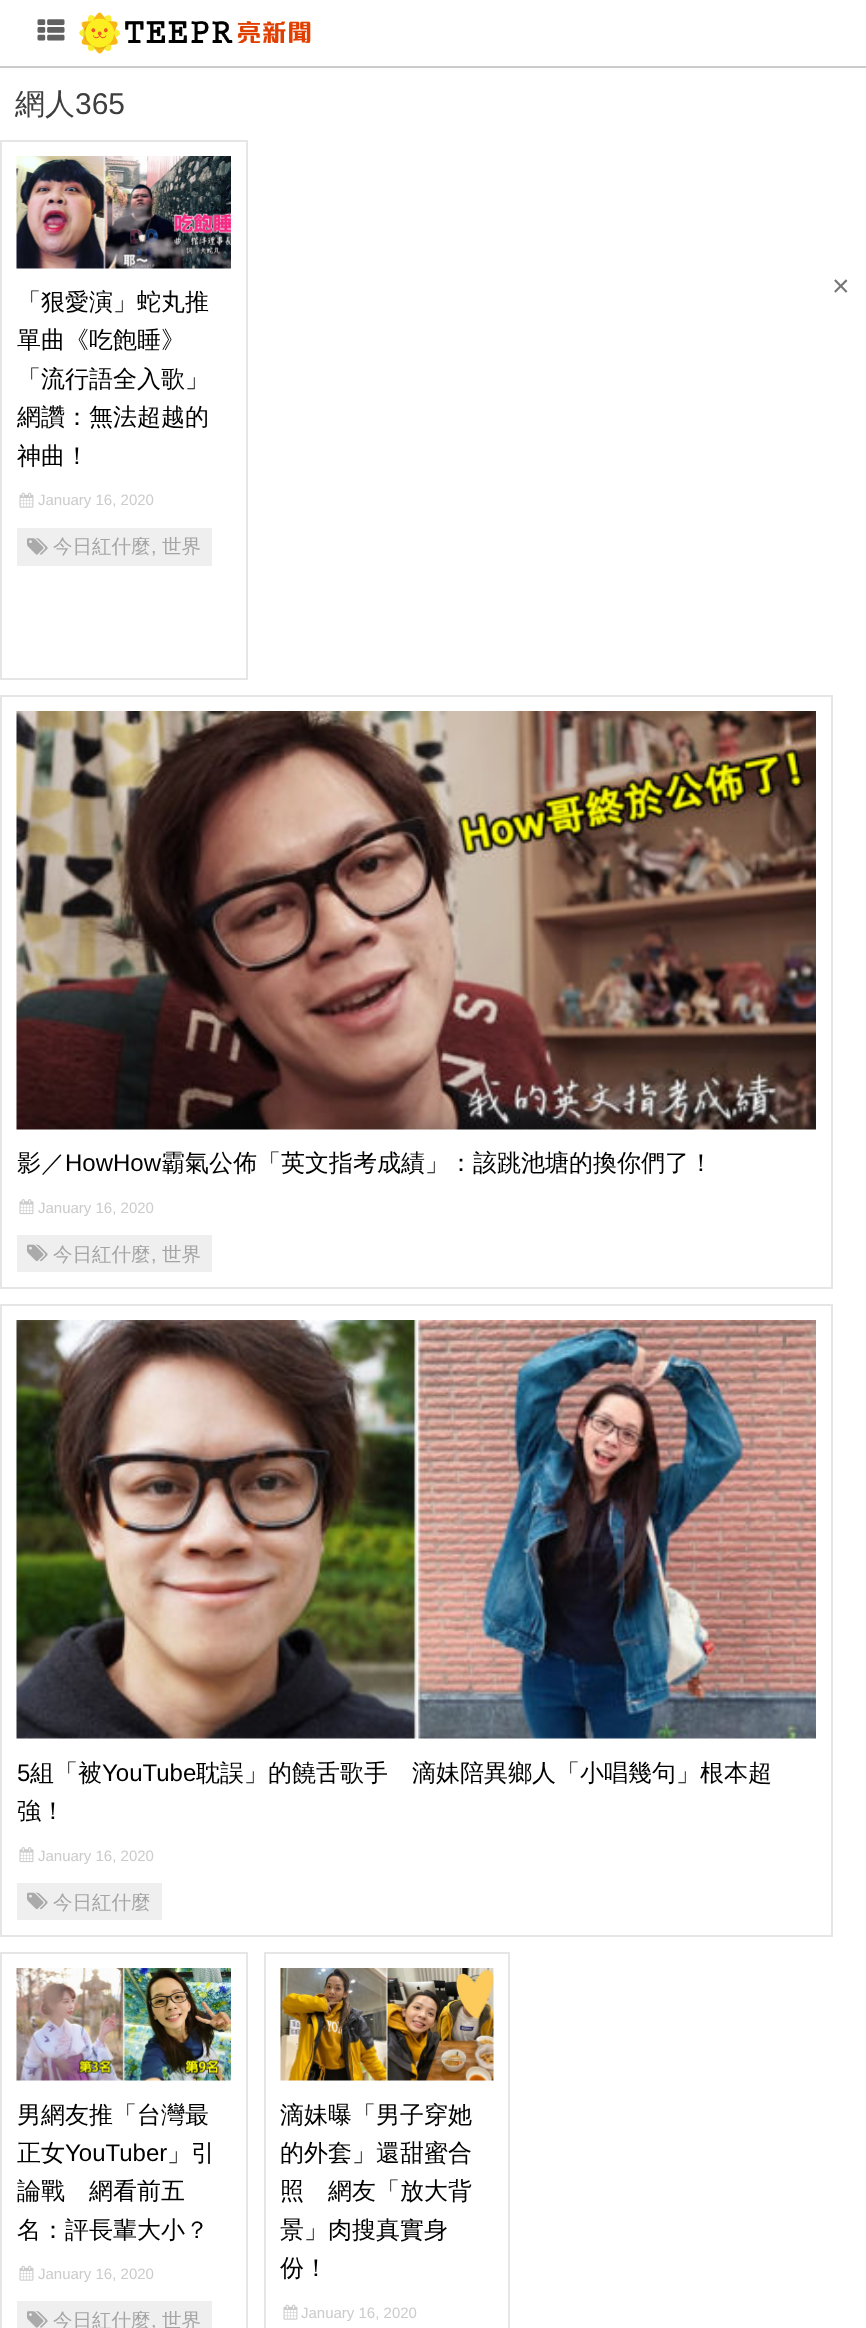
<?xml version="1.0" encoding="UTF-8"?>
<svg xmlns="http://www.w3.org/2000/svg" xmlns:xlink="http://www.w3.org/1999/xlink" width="866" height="2328">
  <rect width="100%" height="100%" fill="#ffffff" />
  <image x="79" y="12" width="232" height="42" xlink:href="image1.png" />
  <rect y="66" width="866" height="2" fill="#cbcbcb" />
  <image x="37" y="19" width="28" height="22" xlink:href="image2.png" />
  <rect x="1" y="141" width="246" height="538" fill="none" stroke="#e6e6e6" stroke-width="2" />
  <image x="16" y="156" width="215" height="113" xlink:href="image3.png" />
  <image x="19" y="492" width="15" height="16" xlink:href="image4.png" />
  <rect x="17" y="528" width="195" height="38" fill="#efefef" />
  <image x="27" y="538" width="21" height="17" xlink:href="image5.png" />
  <rect x="1" y="696" width="831" height="592" fill="none" stroke="#e6e6e6" stroke-width="2" />
  <image x="16" y="711" width="800" height="419" xlink:href="image6.png" />
  <image x="19" y="1199" width="15" height="16" xlink:href="image7.png" />
  <rect x="17" y="1235" width="195" height="37" fill="#efefef" />
  <image x="27" y="1244" width="21" height="18" xlink:href="image8.png" />
  <rect x="1" y="1305" width="831" height="631" fill="none" stroke="#e6e6e6" stroke-width="2" />
  <image x="16" y="1320" width="800" height="419" xlink:href="image9.png" />
  <image x="19" y="1847" width="15" height="16" xlink:href="image7.png" />
  <rect x="17" y="1883" width="145" height="37" fill="#efefef" />
  <image x="27" y="1892" width="21" height="18" xlink:href="image8.png" />
  <rect x="1" y="1953" width="246" height="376" fill="none" stroke="#e6e6e6" stroke-width="2" />
  <image x="16" y="1968" width="215" height="113" xlink:href="image10.png" />
  <image x="19" y="2265" width="15" height="16" xlink:href="image4.png" />
  <rect x="17" y="2301" width="195" height="27" fill="#efefef" />
  <image x="27" y="2311" width="21" height="17" xlink:href="image5.png" />
  <rect x="265" y="1953" width="244" height="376" fill="none" stroke="#e6e6e6" stroke-width="2" />
  <image x="280" y="1968" width="214" height="113" xlink:href="image11.png" />
  <image x="283" y="2304" width="15" height="16" xlink:href="image4.png" />
  <text x="15" y="114" style="font-family: WenQuanYi Zen Hei; font-size: 30px; font-weight: 500; fill: #3e3e3e">網人</text>
  <text x="75" y="114" style="font-family: Liberation Sans; font-size: 30px; fill: #3e3e3e">365</text>
  <text x="17" y="310" style="font-family: WenQuanYi Zen Hei; font-size: 24px; font-weight: 500; fill: #000000">「狠愛演」蛇丸推</text>
  <text x="17" y="348" style="font-family: WenQuanYi Zen Hei; font-size: 24px; font-weight: 500; fill: #000000">單曲《吃飽睡》</text>
  <text x="17" y="387" style="font-family: WenQuanYi Zen Hei; font-size: 24px; font-weight: 500; fill: #000000">「流行語全入歌」</text>
  <text x="17" y="425" style="font-family: WenQuanYi Zen Hei; font-size: 24px; font-weight: 500; fill: #000000">網讚：無法超越的</text>
  <text x="17" y="464" style="font-family: WenQuanYi Zen Hei; font-size: 24px; font-weight: 500; fill: #000000">神曲！</text>
  <text x="38" y="505" style="font-family: Liberation Sans; font-size: 15px; fill: #cbcbcb">January 16, 2020</text>
  <text x="53" y="553" style="font-family: WenQuanYi Zen Hei; font-size: 19.5px; font-weight: 500; fill: #a5a5a5">今日紅什麼</text>
  <text x="151" y="553" style="font-family: Liberation Sans; font-size: 19.5px; fill: #a5a5a5">,</text>
  <text x="162" y="553" style="font-family: WenQuanYi Zen Hei; font-size: 19.5px; font-weight: 500; fill: #a5a5a5">世界</text>
  <text x="17" y="1171" style="font-family: WenQuanYi Zen Hei; font-size: 24px; font-weight: 500; fill: #000000">影／</text>
  <text x="65" y="1171" style="font-family: Liberation Sans; font-size: 24px; fill: #000000">HowHow</text>
  <text x="161" y="1171" style="font-family: WenQuanYi Zen Hei; font-size: 24px; font-weight: 500; fill: #000000">霸氣公佈「英文指考成績」：該跳池塘的換你們了！</text>
  <text x="38" y="1213" style="font-family: Liberation Sans; font-size: 15px; fill: #cbcbcb">January 16, 2020</text>
  <text x="53" y="1261" style="font-family: WenQuanYi Zen Hei; font-size: 19.5px; font-weight: 500; fill: #a5a5a5">今日紅什麼</text>
  <text x="151" y="1261" style="font-family: Liberation Sans; font-size: 19.5px; fill: #a5a5a5">,</text>
  <text x="162" y="1261" style="font-family: WenQuanYi Zen Hei; font-size: 19.5px; font-weight: 500; fill: #a5a5a5">世界</text>
  <text x="17" y="1781" style="font-family: Liberation Sans; font-size: 24px; fill: #000000">5</text>
  <text x="30" y="1781" style="font-family: WenQuanYi Zen Hei; font-size: 24px; font-weight: 500; fill: #000000">組「被</text>
  <text x="102" y="1781" style="font-family: Liberation Sans; font-size: 24px; fill: #000000">YouTube</text>
  <text x="196" y="1781" style="font-family: WenQuanYi Zen Hei; font-size: 24px; font-weight: 500; fill: #000000">耽誤」的饒舌歌手　滴妹陪異鄉人「小唱幾句」根本超</text>
  <text x="17" y="1819" style="font-family: WenQuanYi Zen Hei; font-size: 24px; font-weight: 500; fill: #000000">強！</text>
  <text x="38" y="1861" style="font-family: Liberation Sans; font-size: 15px; fill: #cbcbcb">January 16, 2020</text>
  <text x="53" y="1909" style="font-family: WenQuanYi Zen Hei; font-size: 19.5px; font-weight: 500; fill: #a5a5a5">今日紅什麼</text>
  <text x="17" y="2123" style="font-family: WenQuanYi Zen Hei; font-size: 24px; font-weight: 500; fill: #000000">男網友推「台灣最</text>
  <text x="17" y="2161" style="font-family: WenQuanYi Zen Hei; font-size: 24px; font-weight: 500; fill: #000000">正女</text>
  <text x="65" y="2161" style="font-family: Liberation Sans; font-size: 24px; fill: #000000">YouTuber</text>
  <text x="167" y="2161" style="font-family: WenQuanYi Zen Hei; font-size: 24px; font-weight: 500; fill: #000000">」引</text>
  <text x="17" y="2199" style="font-family: WenQuanYi Zen Hei; font-size: 24px; font-weight: 500; fill: #000000">論戰　網看前五</text>
  <text x="17" y="2238" style="font-family: WenQuanYi Zen Hei; font-size: 24px; font-weight: 500; fill: #000000">名：評長輩大小？</text>
  <text x="38" y="2279" style="font-family: Liberation Sans; font-size: 15px; fill: #cbcbcb">January 16, 2020</text>
  <text x="53" y="2327" style="font-family: WenQuanYi Zen Hei; font-size: 19.5px; font-weight: 500; fill: #a5a5a5">今日紅什麼</text>
  <text x="151" y="2327" style="font-family: Liberation Sans; font-size: 19.5px; fill: #a5a5a5">,</text>
  <text x="162" y="2327" style="font-family: WenQuanYi Zen Hei; font-size: 19.5px; font-weight: 500; fill: #a5a5a5">世界</text>
  <text x="280" y="2123" style="font-family: WenQuanYi Zen Hei; font-size: 24px; font-weight: 500; fill: #000000">滴妹曝「男子穿她</text>
  <text x="280" y="2161" style="font-family: WenQuanYi Zen Hei; font-size: 24px; font-weight: 500; fill: #000000">的外套」還甜蜜合</text>
  <text x="280" y="2199" style="font-family: WenQuanYi Zen Hei; font-size: 24px; font-weight: 500; fill: #000000">照　網友「放大背</text>
  <text x="280" y="2238" style="font-family: WenQuanYi Zen Hei; font-size: 24px; font-weight: 500; fill: #000000">景」肉搜真實身</text>
  <text x="280" y="2276" style="font-family: WenQuanYi Zen Hei; font-size: 24px; font-weight: 500; fill: #000000">份！</text>
  <text x="301" y="2318" style="font-family: Liberation Sans; font-size: 15px; fill: #cbcbcb">January 16, 2020</text>
  <text x="832" y="296" style="font-family: Liberation Sans; font-size: 30px; fill: #777777">×</text>
</svg>
